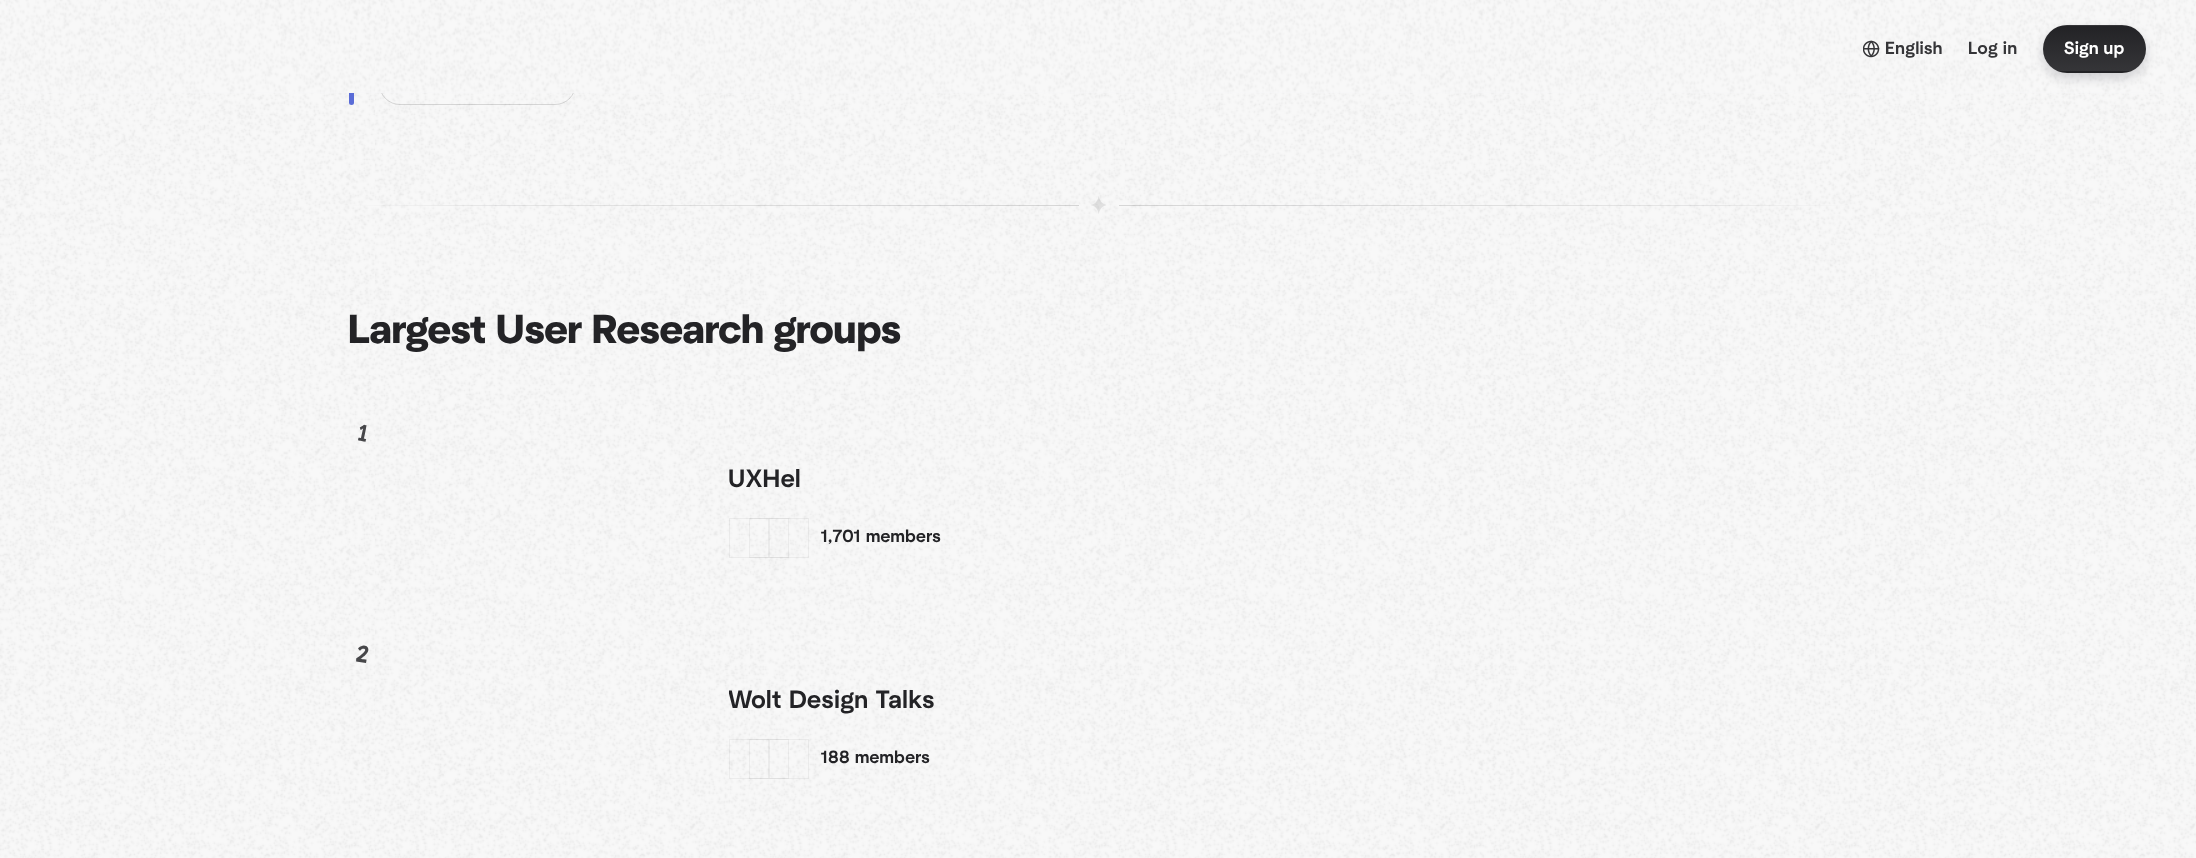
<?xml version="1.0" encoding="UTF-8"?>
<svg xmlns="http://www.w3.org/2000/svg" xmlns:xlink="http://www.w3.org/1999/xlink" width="2196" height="858">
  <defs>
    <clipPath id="clip1"><rect x="2043" y="25" width="103" height="48" rx="24" /></clipPath>
    <linearGradient id="g1" gradientUnits="userSpaceOnUse" x1="2094" y1="-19" x2="2094" y2="26"><stop offset="0" stop-color="#232326" /><stop offset="1" stop-color="#353538" /></linearGradient>
    <linearGradient id="g2" gradientUnits="userSpaceOnUse" x1="2094" y1="26" x2="2094" y2="71"><stop offset="0" stop-color="#232326" /><stop offset="1" stop-color="#353538" /></linearGradient>
    <linearGradient id="g3" gradientUnits="userSpaceOnUse" x1="2094" y1="71" x2="2094" y2="116"><stop offset="0" stop-color="#232326" /><stop offset="1" stop-color="#353538" /></linearGradient>
    <clipPath id="clip2"><rect x="729" y="684" width="350" height="35" /></clipPath>
  </defs>
  <rect width="100%" height="100%" fill="#ffffff" />
  <image x="0" y="93" width="2196" height="765" xlink:href="image1.png" />
  <rect x="349" y="-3" width="5" height="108" rx="2.5" fill="#5a6cd7" />
  <rect x="379.5" y="63.5" width="196" height="41" rx="20.5" fill="none" stroke="#121215" stroke-opacity="0.15" />
  <rect y="91" width="2196" height="2" fill="#f7f7f8" />
  <image x="0" y="0" width="2196" height="93" xlink:href="image2.png" />
  <image x="1863" y="40" width="17" height="18" xlink:href="image3.png" />
  <rect x="2043" y="30" width="103" height="48" rx="24" fill="#000010" fill-opacity="0.16" filter="blur(6px)" />
  <g clip-path="url(#clip1)">
    <rect x="2060" y="25" width="69" height="1" fill="url(#g1)" />
    <rect x="2043" y="26" width="103" height="45" fill="url(#g2)" />
    <rect x="2057" y="71" width="75" height="2" fill="url(#g3)" />
  </g>
  <image x="1091" y="196" width="15" height="18" xlink:href="image4.png" />
  <rect x="729.5" y="518.5" width="39" height="39" fill="none" stroke="#121215" stroke-opacity="0.05" />
  <rect x="749.5" y="518.5" width="39" height="39" fill="none" stroke="#121215" stroke-opacity="0.05" />
  <rect x="769.5" y="518.5" width="39" height="39" fill="none" stroke="#121215" stroke-opacity="0.05" />
  <rect x="729.5" y="739.5" width="39" height="39" fill="none" stroke="#121215" stroke-opacity="0.05" />
  <rect x="749.5" y="739.5" width="39" height="39" fill="none" stroke="#121215" stroke-opacity="0.05" />
  <rect x="769.5" y="739.5" width="39" height="39" fill="none" stroke="#121215" stroke-opacity="0.05" />
  <text x="1885" y="54" style="font-family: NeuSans; font-size: 17.5px; font-weight: 500; letter-spacing: 0.3px; fill: #353538">English</text>
  <text x="1968" y="54" style="font-family: NeuSans; font-size: 17.5px; font-weight: 500; letter-spacing: 0.3px; fill: #353538">Log in</text>
  <text x="2064" y="54" style="font-family: NeuSans; font-size: 17.5px; font-weight: 500; letter-spacing: 0.3px; fill: #ffffff">Sign up</text>
  <text x="348" y="343" style="font-family: NeuSans; font-size: 40px; font-weight: bold; fill: #232326">Largest User Research groups</text>
  <text x="357" y="440" transform="rotate(12 357 440)" style="font-family: Grandstander; font-size: 25px; font-weight: 600; fill: #464649">1</text>
  <text x="728" y="487" style="font-family: NeuSans; font-size: 25px; font-weight: 500; letter-spacing: 0.5px; fill: #232326">UXHel</text>
  <text x="821" y="542" style="font-family: NeuSans; font-size: 17.5px; font-weight: 500; letter-spacing: 0.3px; fill: #232326">1,701 members</text>
  <text x="355" y="661" transform="rotate(12 355 661)" style="font-family: Grandstander; font-size: 25px; font-weight: 600; fill: #464649">2</text>
  <g clip-path="url(#clip2)">
    <text x="728" y="708" style="font-family: NeuSans; font-size: 25px; font-weight: 500; letter-spacing: 0.5px; fill: #232326">Wolt Design Talks</text>
  </g>
  <text x="821" y="763" style="font-family: NeuSans; font-size: 17.5px; font-weight: 500; letter-spacing: 0.3px; fill: #232326">188 members</text>
</svg>
